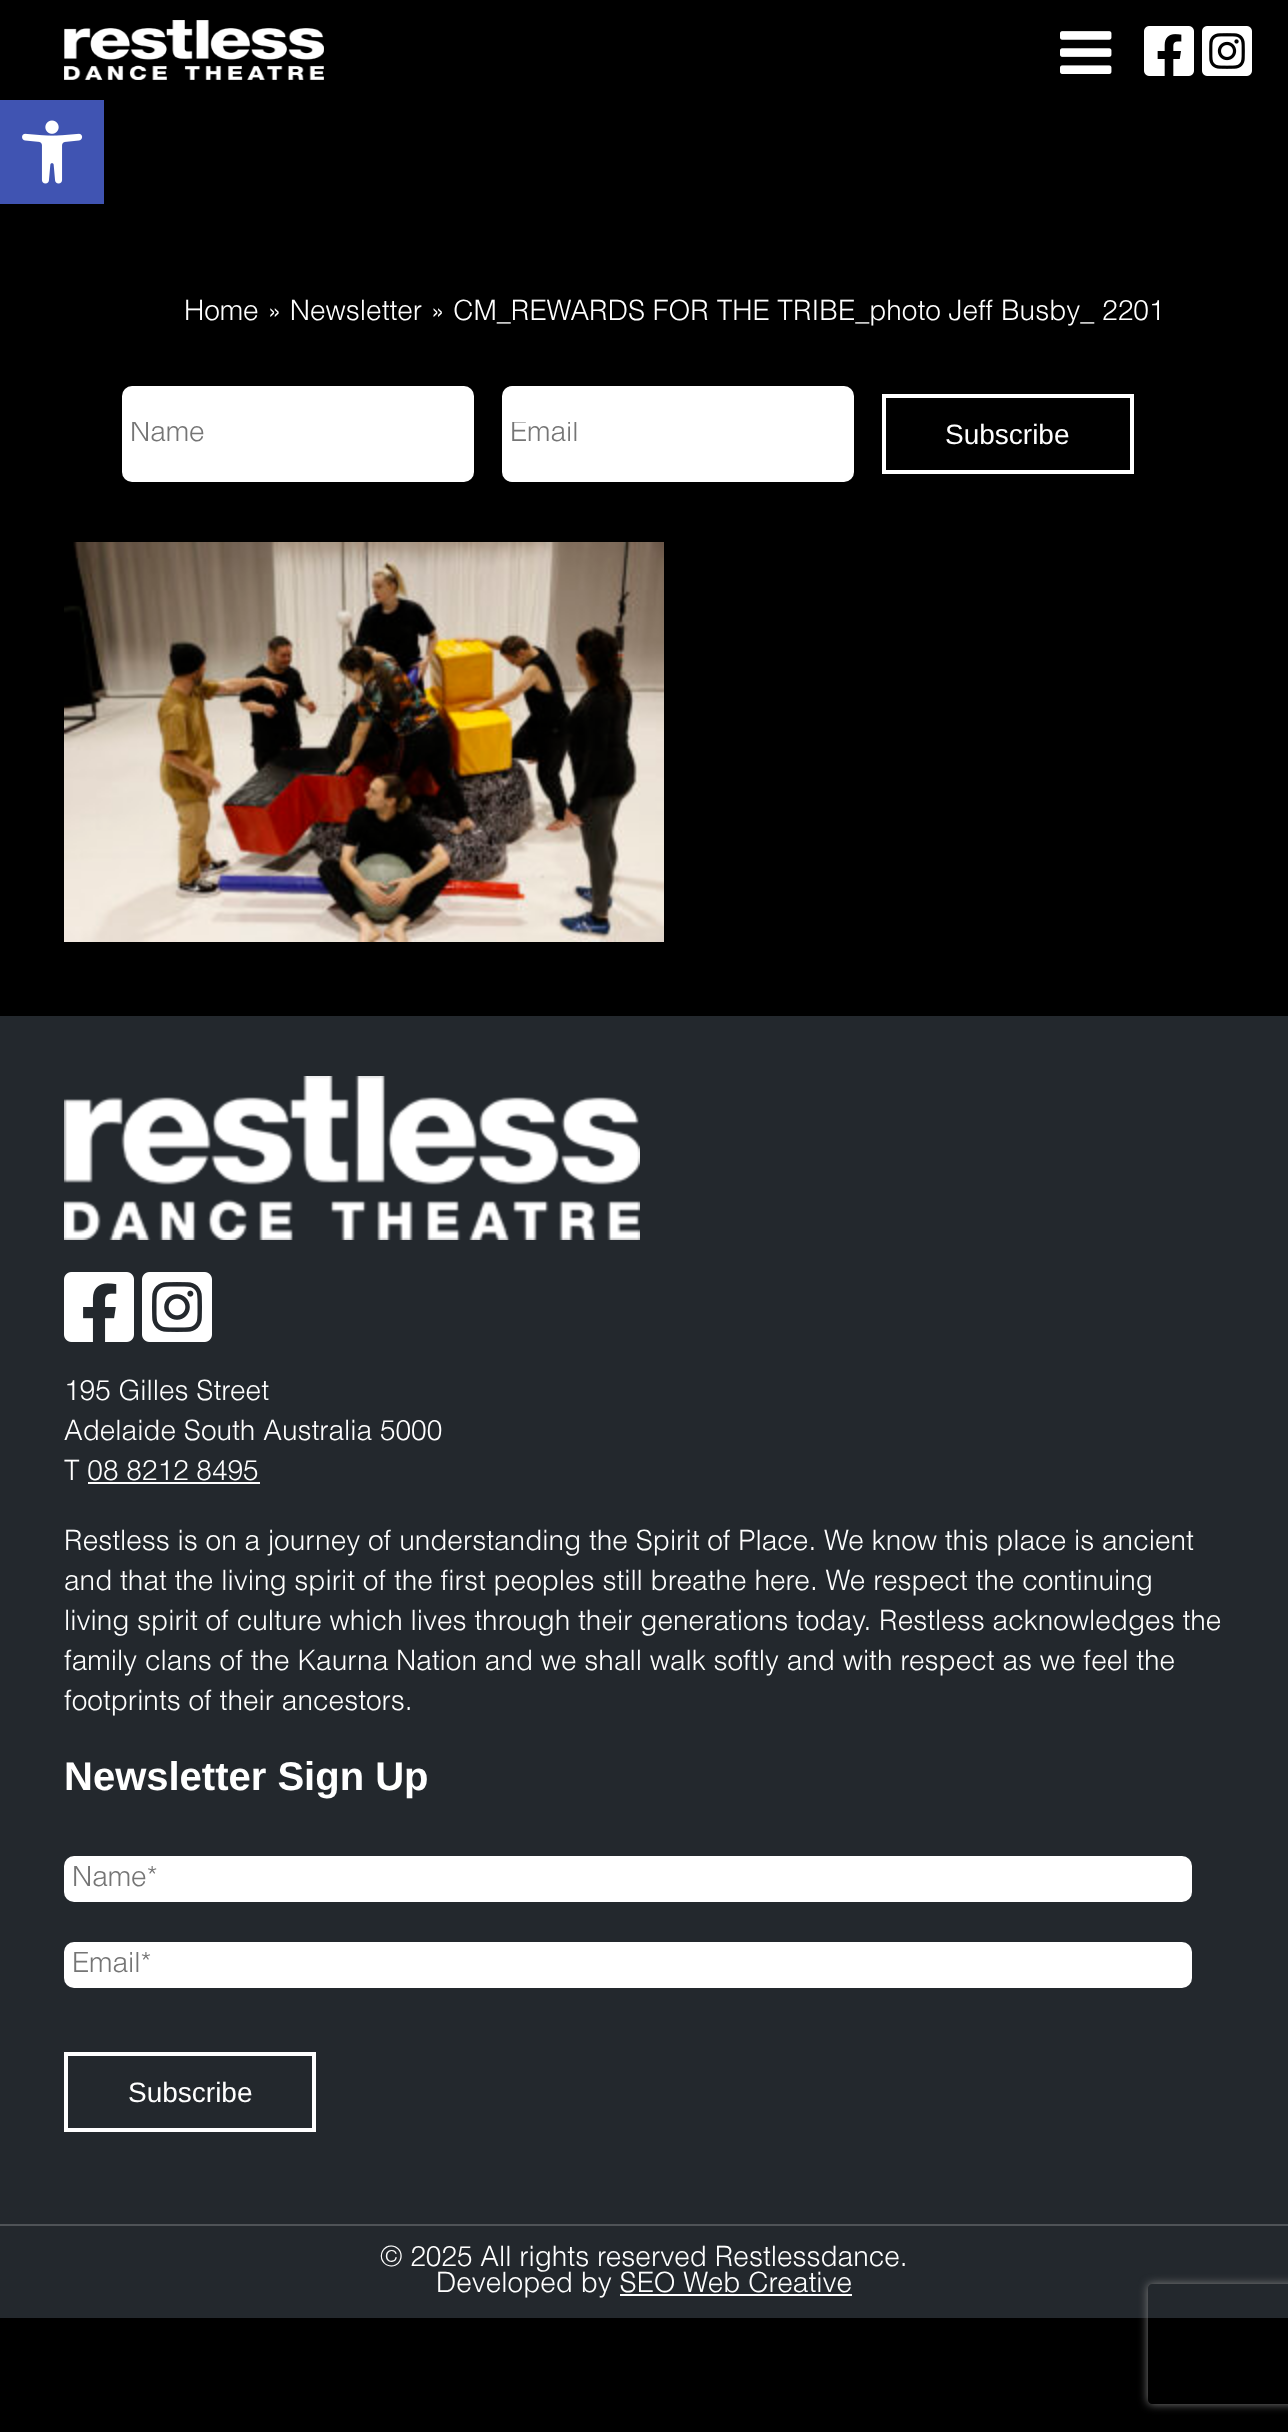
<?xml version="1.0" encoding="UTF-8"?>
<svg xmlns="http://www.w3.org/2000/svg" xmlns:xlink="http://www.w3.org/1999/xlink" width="1288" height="2432">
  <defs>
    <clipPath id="clip1"><path d="M 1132 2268 h 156 v 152 h -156 z m 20 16 h 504 c 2 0 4 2 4 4 v 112 c 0 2 -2 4 -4 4 h -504 c -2 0 -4 -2 -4 -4 v -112 c 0 -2 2 -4 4 -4 z" clip-rule="evenodd" /></clipPath>
    <clipPath id="clip2"><rect x="130" y="422" width="336" height="26" /></clipPath>
    <clipPath id="clip3"><rect x="510" y="422" width="336" height="26" /></clipPath>
    <clipPath id="clip4"><rect x="72" y="1866" width="1112" height="26" /></clipPath>
    <clipPath id="clip5"><rect x="72" y="1952" width="1112" height="26" /></clipPath>
  </defs>
  <rect width="100%" height="100%" fill="#000000" />
  <image x="64" y="20" width="260" height="60" xlink:href="image1.png" />
  <image x="1060" y="31" width="52" height="43" xlink:href="image2.png" />
  <image x="1144" y="26" width="50" height="50" xlink:href="image3.png" />
  <image x="1202" y="26" width="50" height="50" xlink:href="image4.png" />
  <rect y="100" width="104" height="104" fill="#4054b2" />
  <image x="22" y="120" width="61" height="64" xlink:href="image5.png" />
  <rect x="122" y="386" width="352" height="96" rx="10" fill="#ffffff" />
  <rect x="502" y="386" width="352" height="96" rx="10" fill="#ffffff" />
  <rect x="884" y="396" width="248" height="76" fill="none" stroke="#ffffff" stroke-width="4" />
  <image x="64" y="542" width="600" height="400" xlink:href="image6.png" />
  <rect y="1016" width="1288" height="1208" fill="#23282d" />
  <rect y="2224" width="1288" height="2" fill="#4f5357" />
  <image x="64" y="1076" width="576" height="164" xlink:href="image7.png" />
  <image x="64" y="1272" width="70" height="70" xlink:href="image8.png" />
  <image x="142" y="1272" width="70" height="70" xlink:href="image9.png" />
  <rect x="88" y="1482" width="172" height="2" fill="#ffffff" />
  <rect x="64" y="1856" width="1128" height="46" rx="10" fill="#ffffff" />
  <rect x="64" y="1942" width="1128" height="46" rx="10" fill="#ffffff" />
  <rect x="66" y="2054" width="248" height="76" fill="none" stroke="#ffffff" stroke-width="4" />
  <rect y="2226" width="1288" height="92" fill="#23282d" />
  <rect x="620" y="2294" width="232" height="2" fill="#ffffff" />
  <g clip-path="url(#clip1)">
    <rect x="1148" y="2284" width="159" height="120" rx="4" fill="#808080" filter="blur(5px)" />
  </g>
  <text x="184" y="320" style="font-family: Helvetica; font-size: 28px; font-weight: 300; fill: #ffffff">Home » Newsletter » CM_REWARDS FOR THE TRIBE_photo Jeff Busby_ 2201</text>
  <g clip-path="url(#clip2)">
    <text x="130" y="441" style="font-family: Helvetica; font-size: 28px; font-weight: 300; fill: #757575">Name</text>
  </g>
  <g clip-path="url(#clip3)">
    <text x="510" y="441" style="font-family: Helvetica; font-size: 28px; font-weight: 300; fill: #757575">Email</text>
  </g>
  <text x="945" y="444" style="font-family: Liberation Sans; font-size: 28px; fill: #ffffff">Subscribe</text>
  <text x="64" y="1400" style="font-family: Helvetica; font-size: 28px; font-weight: 300; fill: #ffffff">195 Gilles Street</text>
  <text x="64" y="1440" style="font-family: Helvetica; font-size: 28px; font-weight: 300; fill: #ffffff">Adelaide South Australia 5000</text>
  <text x="64" y="1480" style="font-family: Helvetica; font-size: 28px; font-weight: 300; fill: #ffffff">T 08 8212 8495</text>
  <text x="64" y="1550" style="font-family: Helvetica; font-size: 28px; font-weight: 300; fill: #ffffff">Restless is on a journey of understanding the Spirit of Place. We know this place is ancient</text>
  <text x="64" y="1590" style="font-family: Helvetica; font-size: 28px; font-weight: 300; fill: #ffffff">and that the living spirit of the first peoples still breathe here. We respect the continuing</text>
  <text x="64" y="1630" style="font-family: Helvetica; font-size: 28px; font-weight: 300; fill: #ffffff">living spirit of culture which lives through their generations today. Restless acknowledges the</text>
  <text x="64" y="1670" style="font-family: Helvetica; font-size: 28px; font-weight: 300; fill: #ffffff">family clans of the Kaurna Nation and we shall walk softly and with respect as we feel the</text>
  <text x="64" y="1710" style="font-family: Helvetica; font-size: 28px; font-weight: 300; fill: #ffffff">footprints of their ancestors.</text>
  <text x="64" y="1790" style="font-family: Liberation Sans; font-size: 40px; font-weight: bold; fill: #ffffff">Newsletter Sign Up</text>
  <g clip-path="url(#clip4)">
    <text x="72" y="1886" style="font-family: Helvetica; font-size: 28px; font-weight: 300; fill: #757575">Name*</text>
  </g>
  <g clip-path="url(#clip5)">
    <text x="72" y="1972" style="font-family: Helvetica; font-size: 28px; font-weight: 300; fill: #757575">Email*</text>
  </g>
  <text x="128" y="2102" style="font-family: Liberation Sans; font-size: 28px; fill: #ffffff">Subscribe</text>
  <text x="380" y="2266" style="font-family: Helvetica; font-size: 28px; font-weight: 300; fill: #ffffff">© 2025 All rights reserved Restlessdance.</text>
  <text x="436" y="2292" style="font-family: Helvetica; font-size: 28px; font-weight: 300; fill: #ffffff">Developed by SEO Web Creative</text>
</svg>
